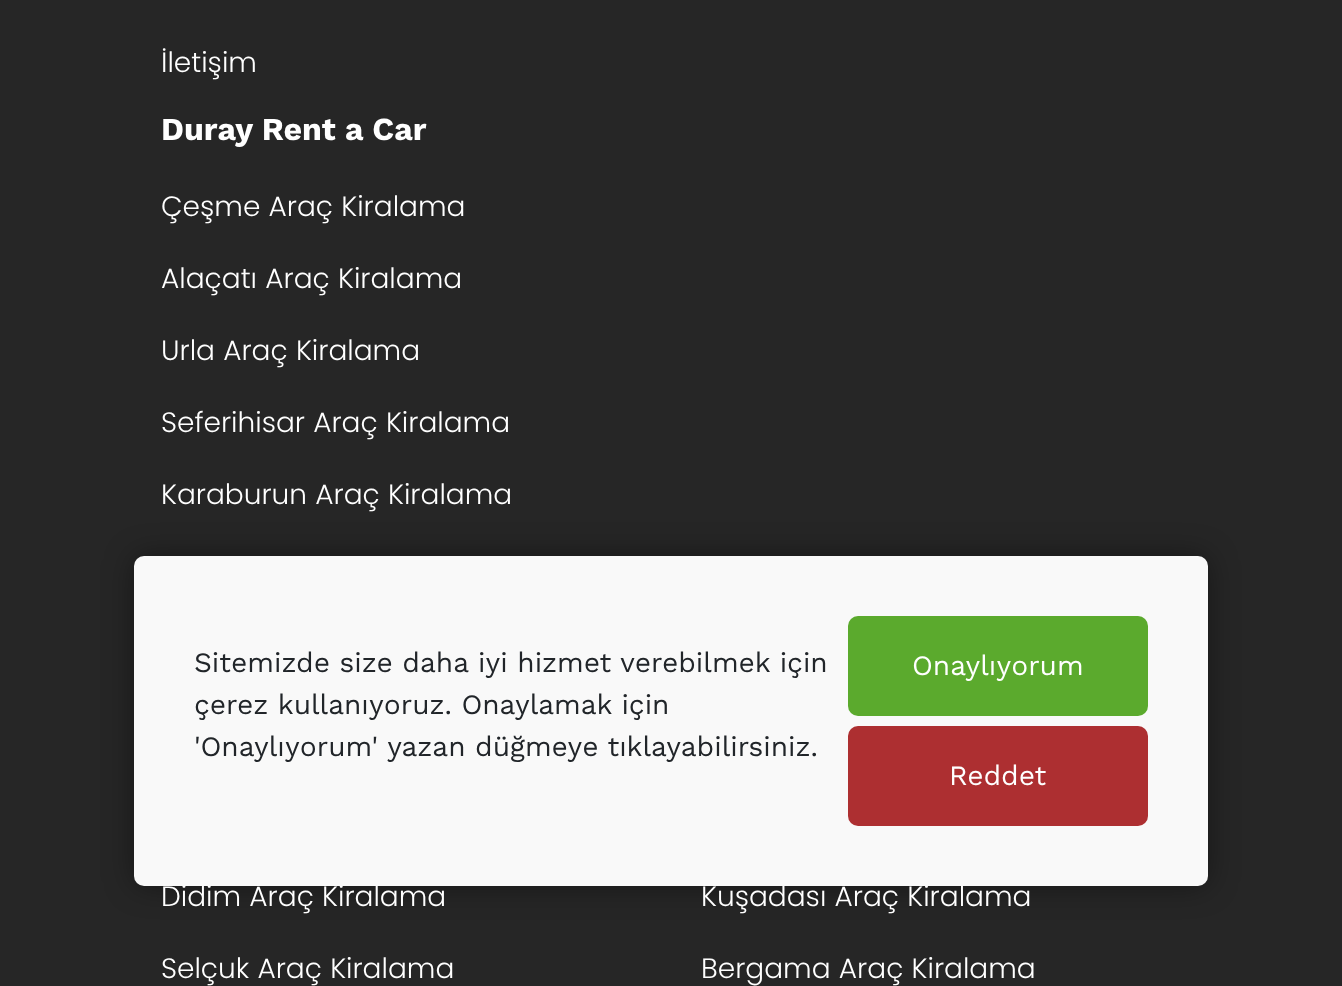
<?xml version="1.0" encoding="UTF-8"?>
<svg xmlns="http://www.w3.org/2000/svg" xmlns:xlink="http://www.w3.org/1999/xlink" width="1342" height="986">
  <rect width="100%" height="100%" fill="#262626" />
  <rect x="134" y="556" width="1074" height="330" rx="10" fill="#000000" fill-opacity="0.4" filter="blur(15px)" />
  <text x="161" y="72" style="font-family: Poppins; font-size: 28px; font-weight: 300; fill: #ffffff">İletişim</text>
  <text x="161" y="140" style="font-family: Work Sans; font-size: 32px; font-weight: bold; fill: #ffffff">Duray Rent a Car</text>
  <text x="161" y="216" style="font-family: Poppins; font-size: 28px; font-weight: 300; fill: #ffffff">Çeşme Araç Kiralama</text>
  <text x="161" y="288" style="font-family: Poppins; font-size: 28px; font-weight: 300; fill: #ffffff">Alaçatı Araç Kiralama</text>
  <text x="161" y="360" style="font-family: Poppins; font-size: 28px; font-weight: 300; fill: #ffffff">Urla Araç Kiralama</text>
  <text x="161" y="432" style="font-family: Poppins; font-size: 28px; font-weight: 300; fill: #ffffff">Seferihisar Araç Kiralama</text>
  <text x="161" y="504" style="font-family: Poppins; font-size: 28px; font-weight: 300; fill: #ffffff">Karaburun Araç Kiralama</text>
  <text x="161" y="906" style="font-family: Poppins; font-size: 28px; font-weight: 300; fill: #ffffff">Didim Araç Kiralama</text>
  <text x="701" y="906" style="font-family: Poppins; font-size: 28px; font-weight: 300; fill: #ffffff">Kuşadası Araç Kiralama</text>
  <text x="161" y="978" style="font-family: Poppins; font-size: 28px; font-weight: 300; fill: #ffffff">Selçuk Araç Kiralama</text>
  <text x="701" y="978" style="font-family: Poppins; font-size: 28px; font-weight: 300; fill: #ffffff">Bergama Araç Kiralama</text>
  <rect x="134" y="556" width="1074" height="330" rx="10" fill="#f9f9f9" />
  <text x="194" y="672" style="font-family: Work Sans; font-size: 28px; fill: #212529">Sitemizde size daha iyi hizmet verebilmek için</text>
  <text x="194" y="714" style="font-family: Work Sans; font-size: 28px; fill: #212529">çerez kullanıyoruz. Onaylamak için</text>
  <text x="194" y="756" style="font-family: Work Sans; font-size: 28px; fill: #212529">'Onaylıyorum' yazan düğmeye tıklayabilirsiniz.</text>
  <rect x="848" y="616" width="300" height="100" rx="10" fill="#5baa2d" />
  <text x="912" y="675" style="font-family: Work Sans; font-size: 28px; fill: #ffffff">Onaylıyorum</text>
  <rect x="848" y="726" width="300" height="100" rx="10" fill="#ad2f31" />
  <text x="949" y="785" style="font-family: Work Sans; font-size: 28px; fill: #ffffff">Reddet</text>
</svg>
